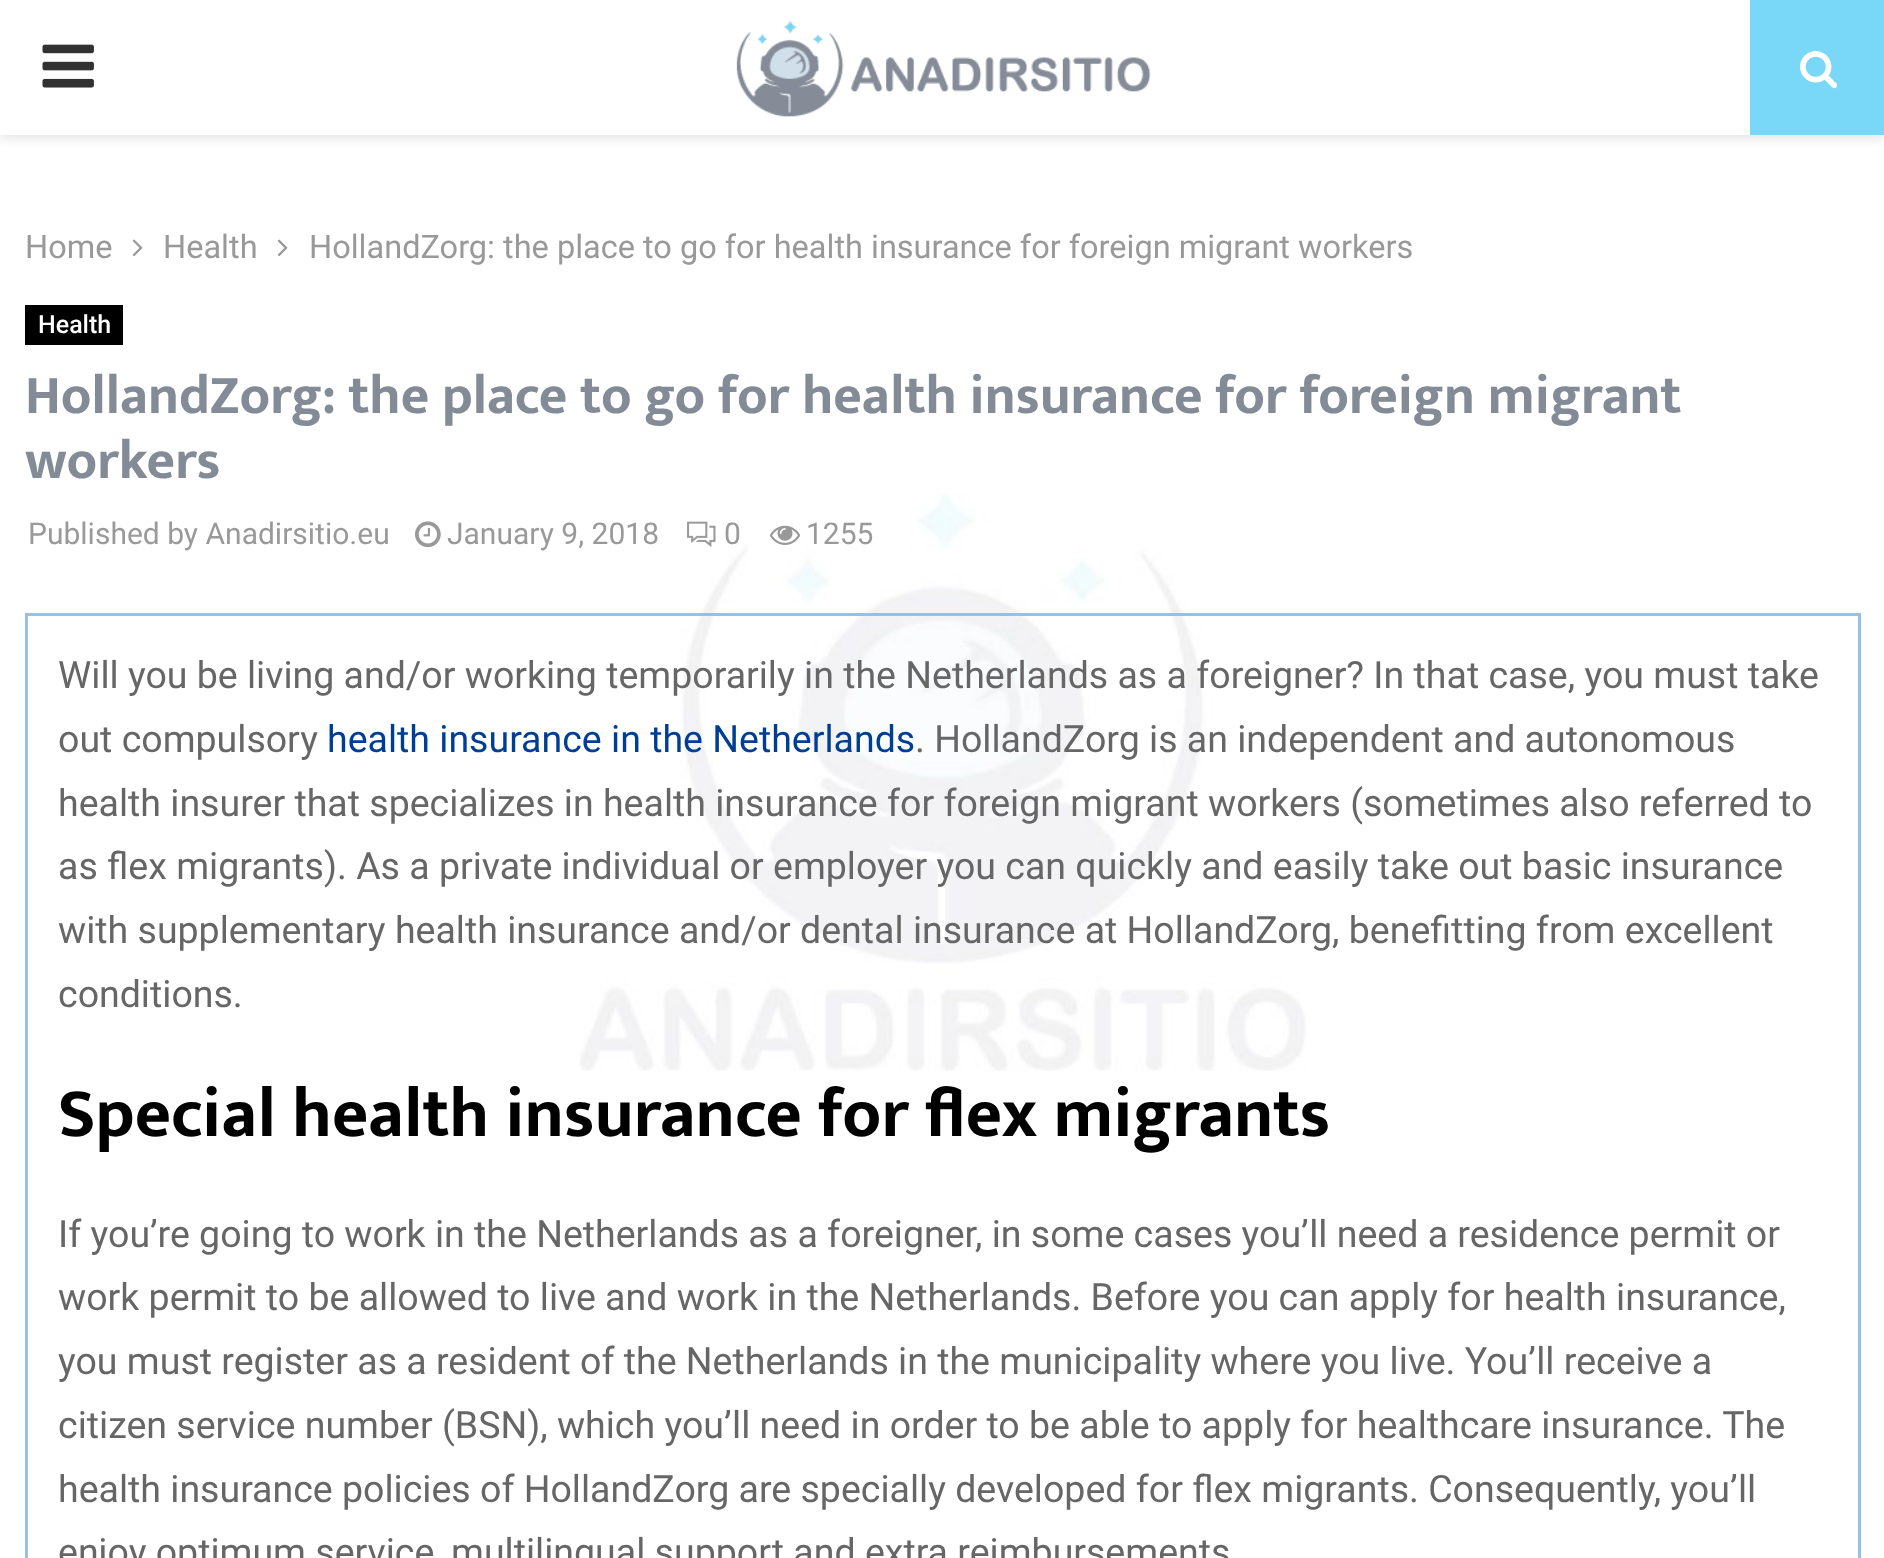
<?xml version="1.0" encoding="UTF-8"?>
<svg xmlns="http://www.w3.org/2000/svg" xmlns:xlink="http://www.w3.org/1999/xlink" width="1884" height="1558">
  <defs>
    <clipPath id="clip1"><rect x="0" y="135" width="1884" height="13" /></clipPath>
  </defs>
  <rect width="100%" height="100%" fill="#ffffff" />
  <image x="579" y="494" width="727" height="577" xlink:href="image1.png" />
  <g clip-path="url(#clip1)">
    <rect y="3" width="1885" height="135" fill="#bebebe" fill-opacity="0.46" filter="blur(6px)" />
  </g>
  <image x="42" y="44" width="52" height="44" xlink:href="image2.png" />
  <image x="736" y="21" width="415" height="96" xlink:href="image3.png" />
  <rect x="1750" width="134" height="135" fill="#79d7f7" />
  <image x="1800" y="51" width="38" height="38" xlink:href="image4.png" />
  <image x="132" y="239" width="11" height="18" xlink:href="image5.png" />
  <image x="277" y="239" width="11" height="18" xlink:href="image5.png" />
  <rect x="25" y="305" width="98" height="40" fill="#000000" />
  <image x="415" y="521" width="26" height="27" xlink:href="image6.png" />
  <image x="687" y="521" width="29" height="26" xlink:href="image7.png" />
  <image x="770" y="525" width="30" height="20" xlink:href="image8.png" />
  <rect x="25" y="613" width="1835" height="3" fill="#99c0e1" />
  <rect x="1858" y="613" width="3" height="945" fill="#99c0e1" />
  <rect x="25" y="613" width="3" height="945" fill="#99c0e1" />
  <text x="25" y="258" style="font-family: Roboto; font-size: 32.5px; fill: #999999">Home</text>
  <text x="163" y="258" style="font-family: Roboto; font-size: 32.5px; fill: #999999">Health</text>
  <text x="309" y="258" style="font-family: Roboto; font-size: 32.5px; fill: #999999">HollandZorg: the place to go for health insurance for foreign migrant workers</text>
  <text x="38" y="333" style="font-family: Roboto; font-size: 25px; font-weight: 500; fill: #ffffff">Health</text>
  <text x="25" y="413" style="font-family: Mukta Vaani; font-size: 55px; font-weight: bold; fill: #838b96">HollandZorg: the place to go for health insurance for foreign migrant</text>
  <text x="25" y="478" style="font-family: Mukta Vaani; font-size: 55px; font-weight: bold; fill: #838b96">workers</text>
  <text x="28" y="544" style="font-family: Roboto; font-size: 30px; fill: #999999">Published by Anadirsitio.eu</text>
  <text x="447" y="544" style="font-family: Roboto; font-size: 30px; fill: #999999">January 9, 2018</text>
  <text x="724" y="544" style="font-family: Roboto; font-size: 30px; fill: #999999">0</text>
  <text x="806" y="544" style="font-family: Roboto; font-size: 30px; fill: #999999">1255</text>
  <text x="58" y="688" style="font-family: Roboto; font-size: 37.5px; fill: #666666">Will you be living and/or working temporarily in the Netherlands as a foreigner? In that case, you must take</text>
  <text x="58" y="752" style="font-family: Roboto; font-size: 37.5px; fill: #666666">out compulsory</text>
  <text x="327" y="752" style="font-family: Roboto; font-size: 37.5px; fill: #003e96">health insurance in the Netherlands</text>
  <text x="915" y="752" style="font-family: Roboto; font-size: 37.5px; fill: #666666">. HollandZorg is an independent and autonomous</text>
  <text x="58" y="816" style="font-family: Roboto; font-size: 37.5px; fill: #666666">health insurer that specializes in health insurance for foreign migrant workers (sometimes also referred to</text>
  <text x="58" y="879" style="font-family: Roboto; font-size: 37.5px; fill: #666666">as flex migrants). As a private individual or employer you can quickly and easily take out basic insurance</text>
  <text x="58" y="943" style="font-family: Roboto; font-size: 37.5px; fill: #666666">with supplementary health insurance and/or dental insurance at HollandZorg, benefitting from excellent</text>
  <text x="58" y="1007" style="font-family: Roboto; font-size: 37.5px; fill: #666666">conditions.</text>
  <text x="58" y="1136" style="font-family: Mukta Vaani; font-size: 70px; font-weight: bold; fill: #000000">Special health insurance for flex migrants</text>
  <text x="58" y="1247" style="font-family: Roboto; font-size: 37.5px; fill: #666666">If you’re going to work in the Netherlands as a foreigner, in some cases you’ll need a residence permit or</text>
  <text x="58" y="1310" style="font-family: Roboto; font-size: 37.5px; fill: #666666">work permit to be allowed to live and work in the Netherlands. Before you can apply for health insurance,</text>
  <text x="58" y="1374" style="font-family: Roboto; font-size: 37.5px; fill: #666666">you must register as a resident of the Netherlands in the municipality where you live. You’ll receive a</text>
  <text x="58" y="1438" style="font-family: Roboto; font-size: 37.5px; fill: #666666">citizen service number (BSN), which you’ll need in order to be able to apply for healthcare insurance. The</text>
  <text x="58" y="1502" style="font-family: Roboto; font-size: 37.5px; fill: #666666">health insurance policies of HollandZorg are specially developed for flex migrants. Consequently, you’ll</text>
  <text x="58" y="1565" style="font-family: Roboto; font-size: 37.5px; fill: #666666">enjoy optimum service, multilingual support and extra reimbursements</text>
</svg>
